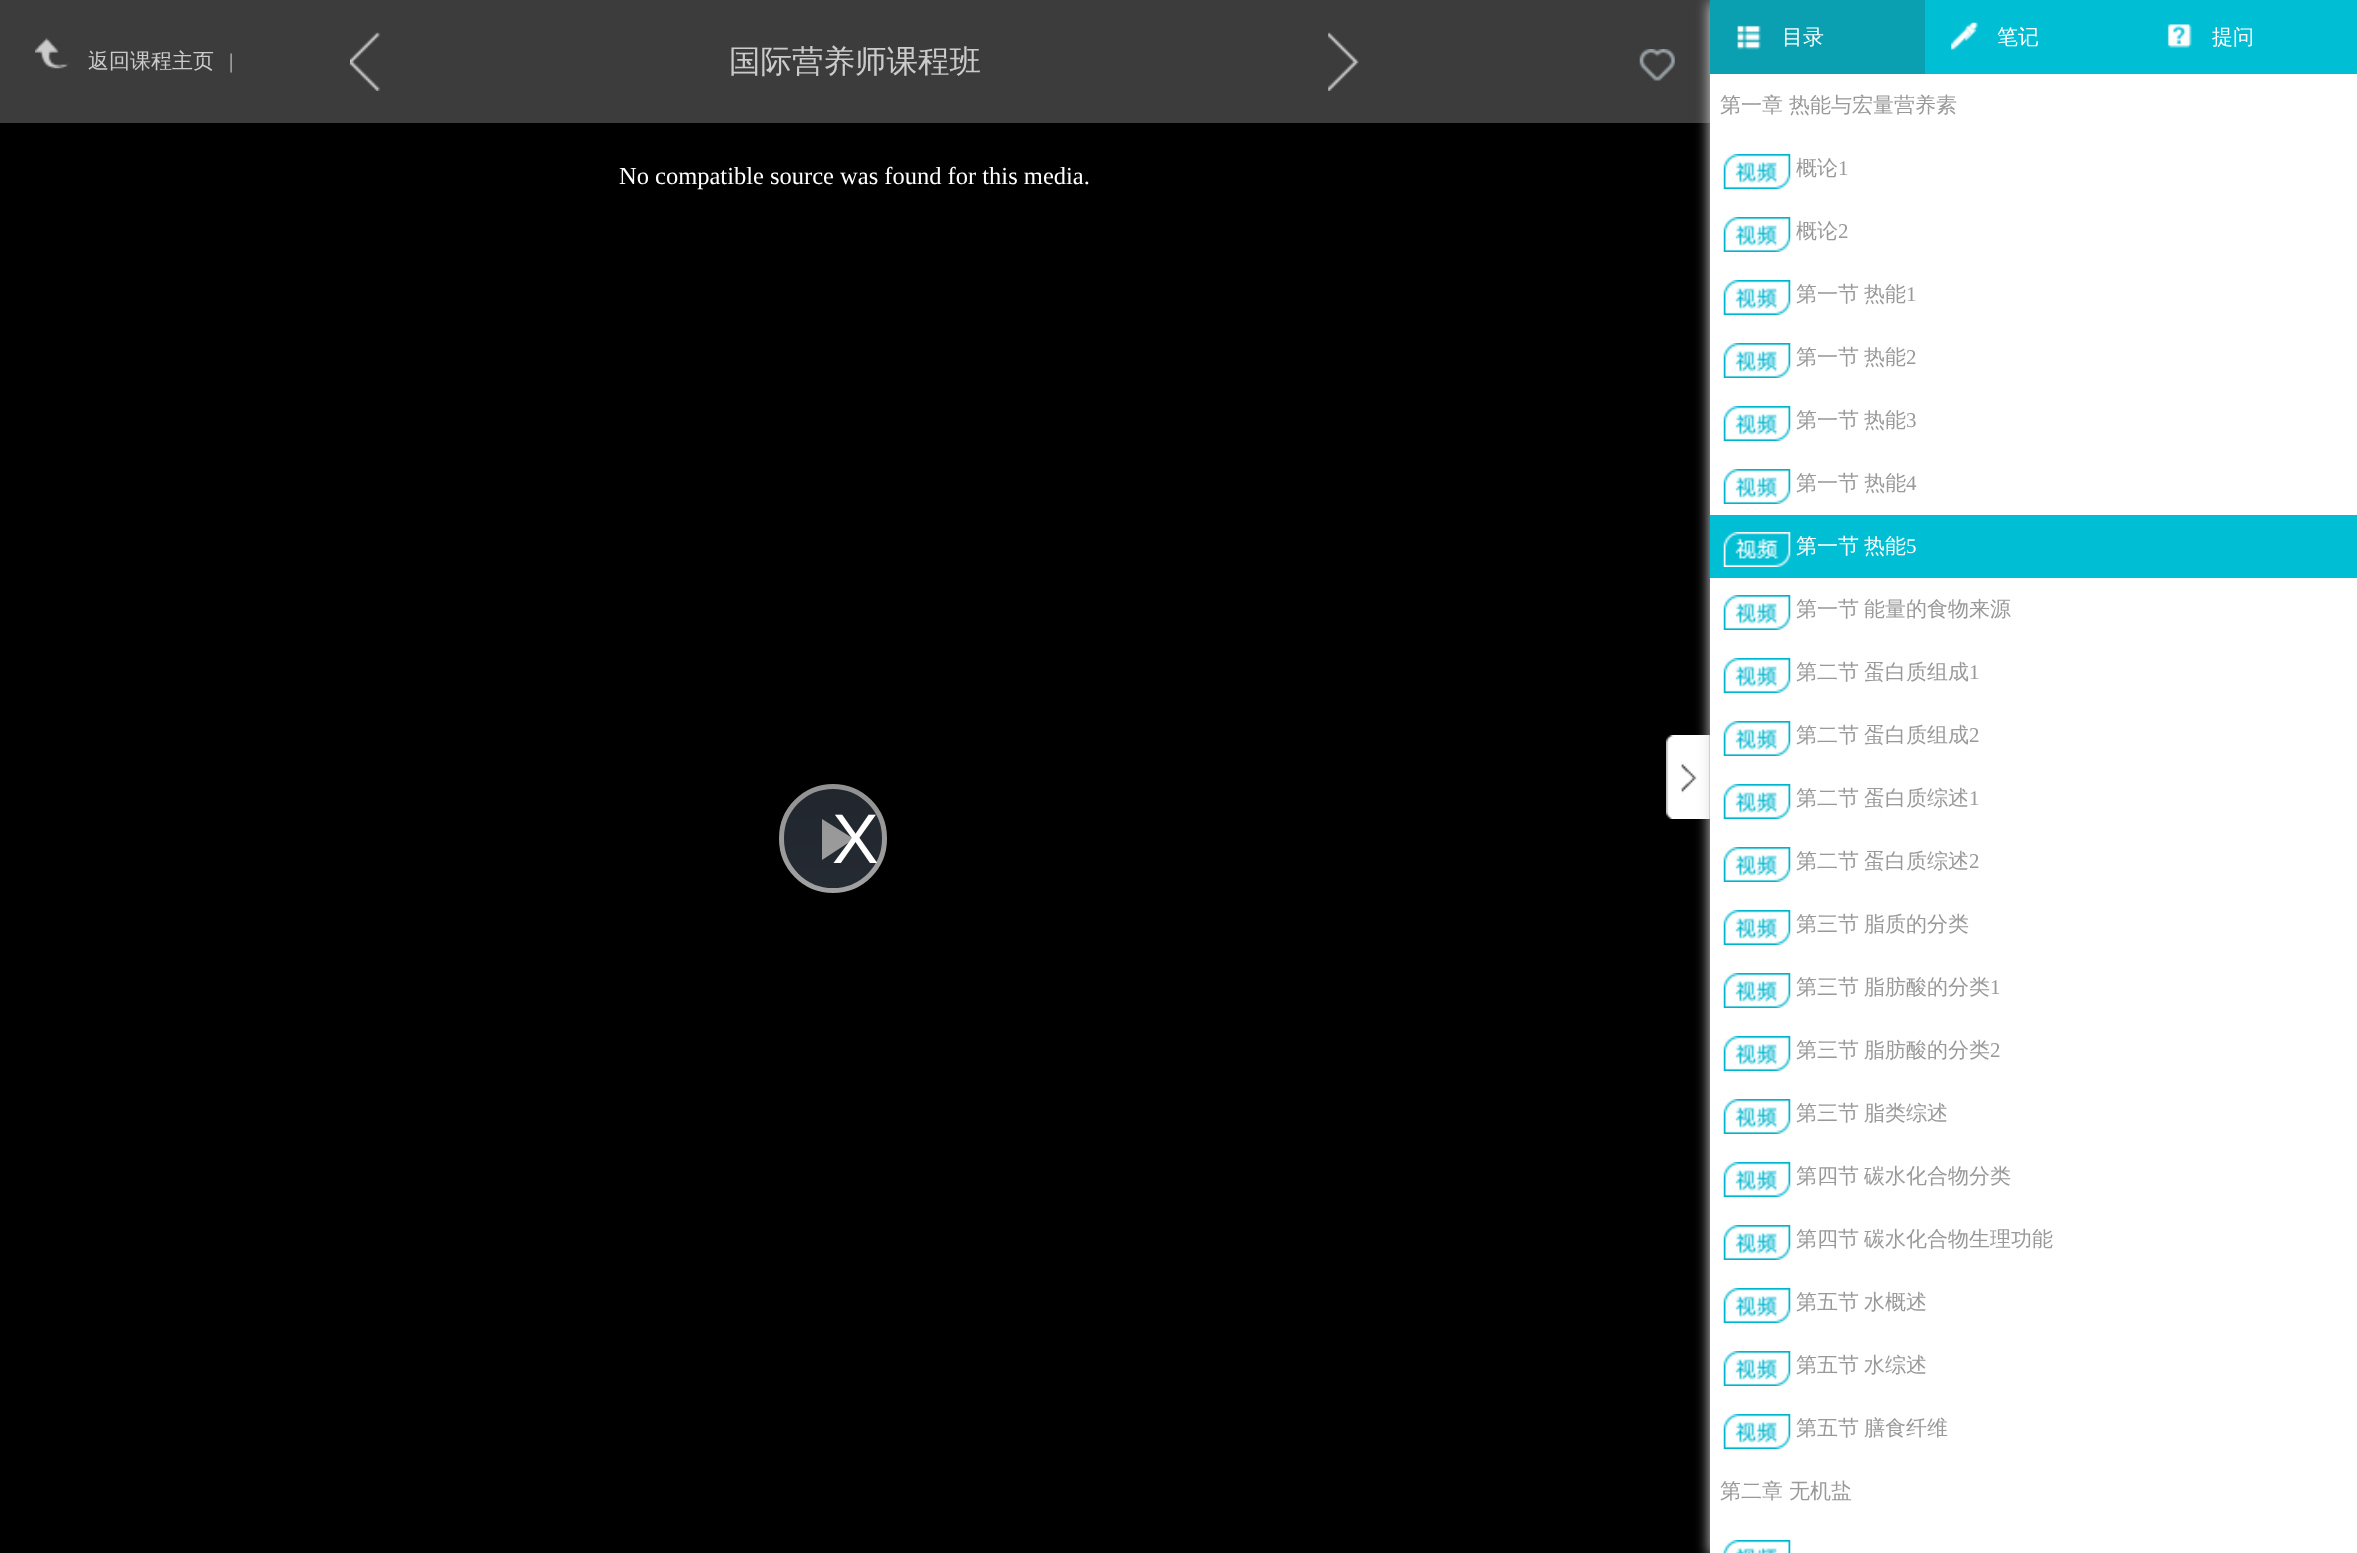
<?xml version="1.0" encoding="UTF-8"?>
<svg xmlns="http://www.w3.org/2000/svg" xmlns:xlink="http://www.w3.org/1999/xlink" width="2357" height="1553">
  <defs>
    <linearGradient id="g1" gradientUnits="userSpaceOnUse" x1="855" y1="122" x2="855" y2="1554"><stop offset="0" stop-color="#000000" stop-opacity="0.8" /><stop offset="1" stop-color="#000000" stop-opacity="0" /></linearGradient>
  </defs>
  <rect width="100%" height="100%" fill="#000000" />
  <rect width="1710" height="123" fill="#3c3c3c" />
  <image x="35" y="38" width="34" height="31" xlink:href="image1.png" />
  <image x="350" y="32" width="31" height="59" xlink:href="image2.png" />
  <image x="1328" y="32" width="31" height="59" xlink:href="image3.png" />
  <image x="1639" y="49" width="36" height="32" xlink:href="image4.png" />
  <rect x="781.5" y="786.5" width="103" height="104" rx="51.5" fill="#3a4350" stroke="#ffffff" stroke-width="5" />
  <path d="M 822 819 v 41 l 32 -21 z" fill="#ffffff" />
  <rect x="779" y="784" width="108" height="109" fill="url(#g1)" />
  <image x="1666" y="735" width="44" height="84" xlink:href="image5.png" />
  <rect x="1710" y="2" width="647" height="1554" fill="#dddddd" filter="blur(7px)" />
  <rect x="1710" y="74" width="647" height="1479" fill="#ffffff" />
  <rect x="1925" width="432" height="74" fill="#00bed4" />
  <rect x="1710" width="215" height="74" fill="#0ba0b1" />
  <image x="1737" y="25" width="24" height="25" xlink:href="image6.png" />
  <image x="1951" y="22" width="27" height="29" xlink:href="image7.png" />
  <image x="2167" y="24" width="25" height="24" xlink:href="image8.png" />
  <image x="1723" y="154" width="68" height="35" xlink:href="image9.png" />
  <image x="1723" y="217" width="68" height="35" xlink:href="image10.png" />
  <image x="1723" y="280" width="68" height="35" xlink:href="image9.png" />
  <image x="1723" y="343" width="68" height="35" xlink:href="image9.png" />
  <image x="1723" y="406" width="68" height="35" xlink:href="image9.png" />
  <image x="1723" y="469" width="68" height="35" xlink:href="image9.png" />
  <rect x="1710" y="515" width="647" height="63" fill="#00bed4" />
  <image x="1723" y="532" width="68" height="35" xlink:href="image11.png" />
  <image x="1723" y="595" width="68" height="35" xlink:href="image9.png" />
  <image x="1723" y="658" width="68" height="35" xlink:href="image9.png" />
  <image x="1723" y="721" width="68" height="35" xlink:href="image9.png" />
  <image x="1723" y="784" width="68" height="35" xlink:href="image9.png" />
  <image x="1723" y="847" width="68" height="35" xlink:href="image9.png" />
  <image x="1723" y="910" width="68" height="35" xlink:href="image9.png" />
  <image x="1723" y="973" width="68" height="35" xlink:href="image9.png" />
  <image x="1723" y="1036" width="68" height="35" xlink:href="image9.png" />
  <image x="1723" y="1099" width="68" height="35" xlink:href="image9.png" />
  <image x="1723" y="1162" width="68" height="35" xlink:href="image9.png" />
  <image x="1723" y="1225" width="68" height="35" xlink:href="image9.png" />
  <image x="1723" y="1288" width="68" height="35" xlink:href="image9.png" />
  <image x="1723" y="1351" width="68" height="35" xlink:href="image9.png" />
  <image x="1723" y="1414" width="68" height="35" xlink:href="image9.png" />
  <image x="1723" y="1540" width="68" height="13" xlink:href="image12.png" />
  <text x="88" y="68" style="font-family: WenQuanYi Zen Hei; font-size: 21px; font-weight: 500; fill: #cbcbcb">返回课程主页</text>
  <text x="229" y="68" style="font-family: Liberation Serif; font-size: 21px; fill: #cbcbcb">|</text>
  <text x="729" y="72" style="font-family: WenQuanYi Zen Hei; font-size: 31.5px; font-weight: 500; fill: #cbcbcb">国际营养师课程班</text>
  <text x="619" y="184" style="font-family: Liberation Serif; font-size: 24.5px; fill: #ffffff">No compatible source was found for this media.</text>
  <text x="832" y="863" style="font-family: Liberation Sans; font-size: 70px; fill: #ffffff">X</text>
  <text x="1782" y="44" style="font-family: WenQuanYi Zen Hei; font-size: 21px; font-weight: 500; fill: #ffffff">目录</text>
  <text x="1997" y="44" style="font-family: WenQuanYi Zen Hei; font-size: 21px; font-weight: 500; fill: #ffffff">笔记</text>
  <text x="2212" y="44" style="font-family: WenQuanYi Zen Hei; font-size: 21px; font-weight: 500; fill: #ffffff">提问</text>
  <text x="1720" y="112" style="font-family: WenQuanYi Zen Hei; font-size: 21px; font-weight: 500; fill: #999999">第一章</text>
  <text x="1789" y="112" style="font-family: WenQuanYi Zen Hei; font-size: 21px; font-weight: 500; fill: #999999">热能与宏量营养素</text>
  <text x="1796" y="175" style="font-family: WenQuanYi Zen Hei; font-size: 21px; font-weight: 500; fill: #999999">概论</text>
  <text x="1838" y="175" style="font-family: Liberation Serif; font-size: 21px; fill: #999999">1</text>
  <text x="1796" y="238" style="font-family: WenQuanYi Zen Hei; font-size: 21px; font-weight: 500; fill: #999999">概论</text>
  <text x="1838" y="238" style="font-family: Liberation Serif; font-size: 21px; fill: #999999">2</text>
  <text x="1796" y="301" style="font-family: WenQuanYi Zen Hei; font-size: 21px; font-weight: 500; fill: #999999">第一节</text>
  <text x="1864" y="301" style="font-family: WenQuanYi Zen Hei; font-size: 21px; font-weight: 500; fill: #999999">热能</text>
  <text x="1906" y="301" style="font-family: Liberation Serif; font-size: 21px; fill: #999999">1</text>
  <text x="1796" y="364" style="font-family: WenQuanYi Zen Hei; font-size: 21px; font-weight: 500; fill: #999999">第一节</text>
  <text x="1864" y="364" style="font-family: WenQuanYi Zen Hei; font-size: 21px; font-weight: 500; fill: #999999">热能</text>
  <text x="1906" y="364" style="font-family: Liberation Serif; font-size: 21px; fill: #999999">2</text>
  <text x="1796" y="427" style="font-family: WenQuanYi Zen Hei; font-size: 21px; font-weight: 500; fill: #999999">第一节</text>
  <text x="1864" y="427" style="font-family: WenQuanYi Zen Hei; font-size: 21px; font-weight: 500; fill: #999999">热能</text>
  <text x="1906" y="427" style="font-family: Liberation Serif; font-size: 21px; fill: #999999">3</text>
  <text x="1796" y="490" word-spacing="-1" style="font-family: WenQuanYi Zen Hei; font-size: 21px; font-weight: 500; fill: #999999">第一节 热能</text>
  <text x="1906" y="490" style="font-family: Liberation Serif; font-size: 21px; fill: #999999">4</text>
  <text x="1796" y="553" style="font-family: WenQuanYi Zen Hei; font-size: 21px; font-weight: 500; fill: #ffffff">第一节</text>
  <text x="1864" y="553" style="font-family: WenQuanYi Zen Hei; font-size: 21px; font-weight: 500; fill: #ffffff">热能</text>
  <text x="1906" y="553" style="font-family: Liberation Serif; font-size: 21px; fill: #ffffff">5</text>
  <text x="1796" y="616" style="font-family: WenQuanYi Zen Hei; font-size: 21px; font-weight: 500; fill: #999999">第一节</text>
  <text x="1864" y="616" style="font-family: WenQuanYi Zen Hei; font-size: 21px; font-weight: 500; fill: #999999">能量的食物来源</text>
  <text x="1796" y="679" style="font-family: WenQuanYi Zen Hei; font-size: 21px; font-weight: 500; fill: #999999">第二节</text>
  <text x="1864" y="679" style="font-family: WenQuanYi Zen Hei; font-size: 21px; font-weight: 500; fill: #999999">蛋白质组成</text>
  <text x="1969" y="679" style="font-family: Liberation Serif; font-size: 21px; fill: #999999">1</text>
  <text x="1796" y="742" style="font-family: WenQuanYi Zen Hei; font-size: 21px; font-weight: 500; fill: #999999">第二节</text>
  <text x="1864" y="742" style="font-family: WenQuanYi Zen Hei; font-size: 21px; font-weight: 500; fill: #999999">蛋白质组成</text>
  <text x="1969" y="742" style="font-family: Liberation Serif; font-size: 21px; fill: #999999">2</text>
  <text x="1796" y="805" style="font-family: WenQuanYi Zen Hei; font-size: 21px; font-weight: 500; fill: #999999">第二节</text>
  <text x="1864" y="805" style="font-family: WenQuanYi Zen Hei; font-size: 21px; font-weight: 500; fill: #999999">蛋白质综述</text>
  <text x="1969" y="805" style="font-family: Liberation Serif; font-size: 21px; fill: #999999">1</text>
  <text x="1796" y="868" style="font-family: WenQuanYi Zen Hei; font-size: 21px; font-weight: 500; fill: #999999">第二节</text>
  <text x="1864" y="868" style="font-family: WenQuanYi Zen Hei; font-size: 21px; font-weight: 500; fill: #999999">蛋白质综述</text>
  <text x="1969" y="868" style="font-family: Liberation Serif; font-size: 21px; fill: #999999">2</text>
  <text x="1796" y="931" style="font-family: WenQuanYi Zen Hei; font-size: 21px; font-weight: 500; fill: #999999">第三节</text>
  <text x="1864" y="931" style="font-family: WenQuanYi Zen Hei; font-size: 21px; font-weight: 500; fill: #999999">脂质的分类</text>
  <text x="1796" y="994" style="font-family: WenQuanYi Zen Hei; font-size: 21px; font-weight: 500; fill: #999999">第三节</text>
  <text x="1864" y="994" style="font-family: WenQuanYi Zen Hei; font-size: 21px; font-weight: 500; fill: #999999">脂肪酸的分类</text>
  <text x="1990" y="994" style="font-family: Liberation Serif; font-size: 21px; fill: #999999">1</text>
  <text x="1796" y="1057" style="font-family: WenQuanYi Zen Hei; font-size: 21px; font-weight: 500; fill: #999999">第三节</text>
  <text x="1864" y="1057" style="font-family: WenQuanYi Zen Hei; font-size: 21px; font-weight: 500; fill: #999999">脂肪酸的分类</text>
  <text x="1990" y="1057" style="font-family: Liberation Serif; font-size: 21px; fill: #999999">2</text>
  <text x="1796" y="1120" style="font-family: WenQuanYi Zen Hei; font-size: 21px; font-weight: 500; fill: #999999">第三节</text>
  <text x="1864" y="1120" style="font-family: WenQuanYi Zen Hei; font-size: 21px; font-weight: 500; fill: #999999">脂类综述</text>
  <text x="1796" y="1183" style="font-family: WenQuanYi Zen Hei; font-size: 21px; font-weight: 500; fill: #999999">第四节</text>
  <text x="1864" y="1183" style="font-family: WenQuanYi Zen Hei; font-size: 21px; font-weight: 500; fill: #999999">碳水化合物分类</text>
  <text x="1796" y="1246" style="font-family: WenQuanYi Zen Hei; font-size: 21px; font-weight: 500; fill: #999999">第四节</text>
  <text x="1864" y="1246" style="font-family: WenQuanYi Zen Hei; font-size: 21px; font-weight: 500; fill: #999999">碳水化合物生理功能</text>
  <text x="1796" y="1309" style="font-family: WenQuanYi Zen Hei; font-size: 21px; font-weight: 500; fill: #999999">第五节</text>
  <text x="1864" y="1309" style="font-family: WenQuanYi Zen Hei; font-size: 21px; font-weight: 500; fill: #999999">水概述</text>
  <text x="1796" y="1372" style="font-family: WenQuanYi Zen Hei; font-size: 21px; font-weight: 500; fill: #999999">第五节</text>
  <text x="1864" y="1372" style="font-family: WenQuanYi Zen Hei; font-size: 21px; font-weight: 500; fill: #999999">水综述</text>
  <text x="1796" y="1435" style="font-family: WenQuanYi Zen Hei; font-size: 21px; font-weight: 500; fill: #999999">第五节</text>
  <text x="1864" y="1435" style="font-family: WenQuanYi Zen Hei; font-size: 21px; font-weight: 500; fill: #999999">膳食纤维</text>
  <text x="1720" y="1498" style="font-family: WenQuanYi Zen Hei; font-size: 21px; font-weight: 500; fill: #999999">第二章</text>
  <text x="1789" y="1498" style="font-family: WenQuanYi Zen Hei; font-size: 21px; font-weight: 500; fill: #999999">无机盐</text>
</svg>
